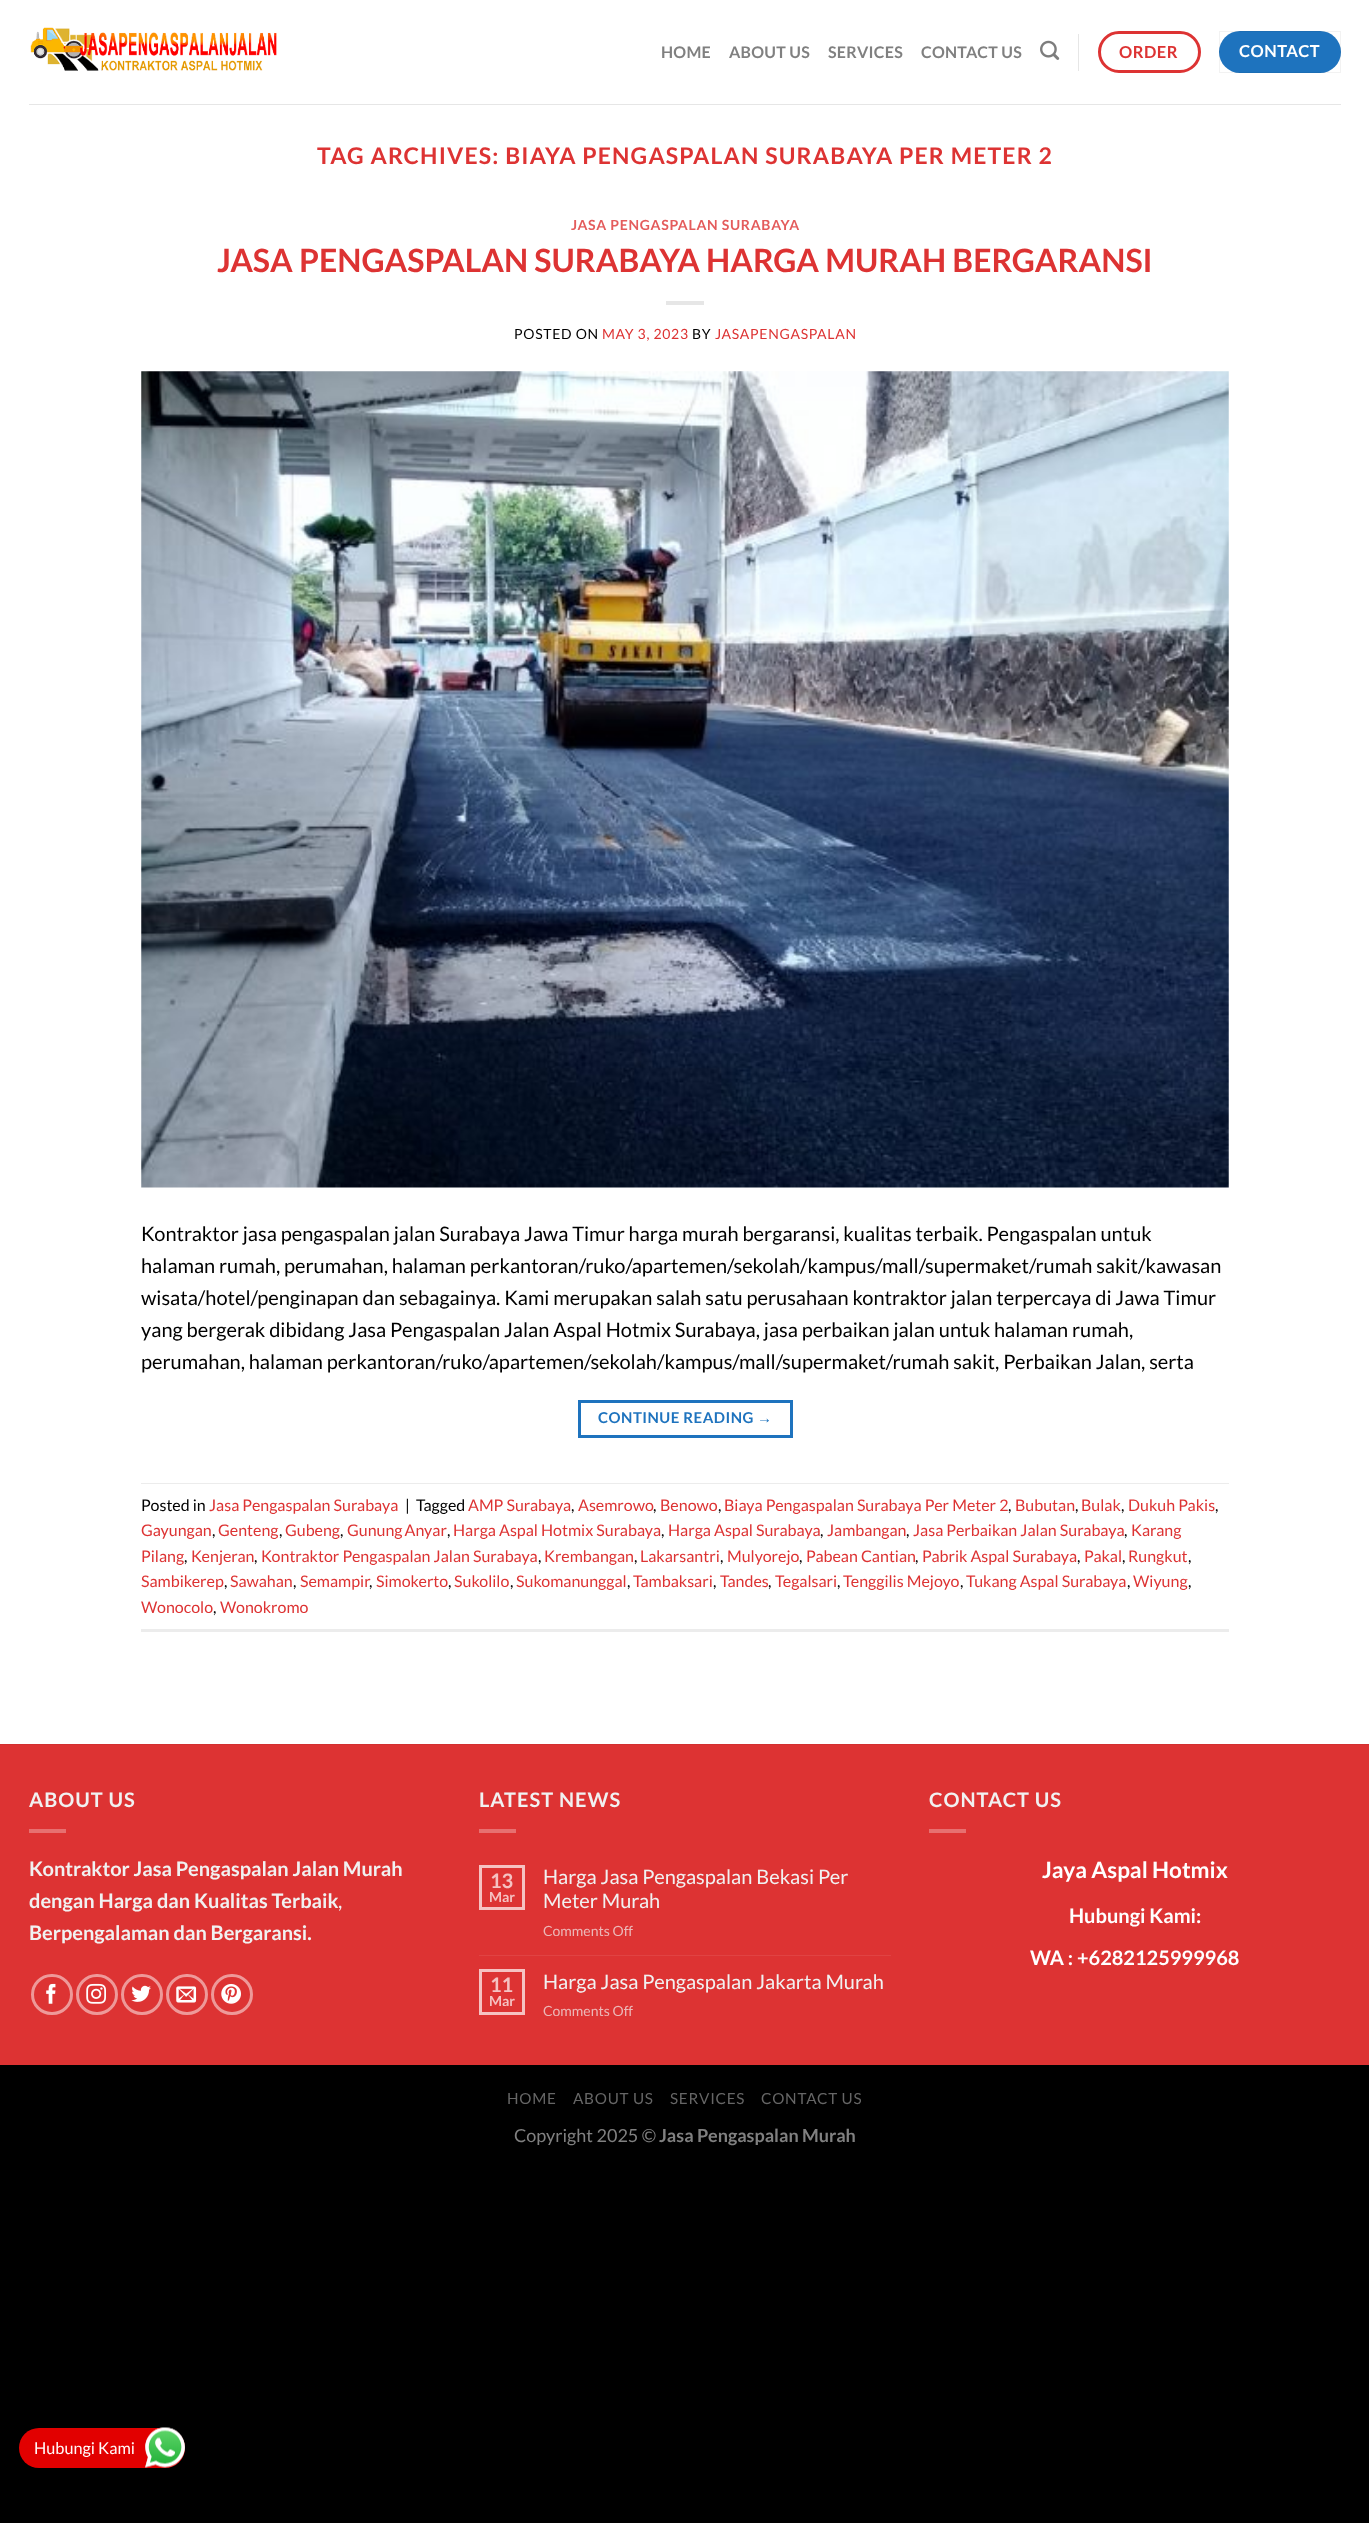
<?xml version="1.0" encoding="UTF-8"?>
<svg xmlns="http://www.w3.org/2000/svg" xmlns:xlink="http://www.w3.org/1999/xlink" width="1369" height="2523">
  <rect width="100%" height="100%" fill="#000000" />
  <rect width="1369" height="1744" fill="#ffffff" />
  <image x="30" y="27" width="247" height="44" xlink:href="image1.png" />
  <image x="1040" y="40" width="20" height="20" xlink:href="image2.png" />
  <rect x="1078" y="34" width="1" height="37" fill="#e6e6e6" />
  <rect x="1099.5" y="32.5" width="100" height="39" rx="19.5" fill="none" stroke="#dd3333" stroke-width="3" />
  <rect x="1219" y="31" width="122" height="42" rx="21" fill="#1e73be" />
  <rect x="1219.5" y="31.5" width="121" height="41" fill="none" stroke="#000000" stroke-opacity="0.05" />
  <rect x="29" y="104" width="1312" height="1" fill="#e6e6e6" />
  <rect x="666" y="301" width="38" height="4" fill="#e6e6e6" />
  <image x="141" y="371" width="1088" height="817" xlink:href="image3.png" />
  <rect x="579.5" y="1401.5" width="212" height="35" fill="none" stroke="#1e73be" stroke-width="3" />
  <rect x="141" y="1483" width="1088" height="1" fill="#ececec" />
  <rect x="141" y="1629" width="1088" height="3" fill="#ececec" />
  <rect y="1745" width="1369" height="320" fill="#dd3333" />
  <rect y="1744" width="1369" height="1" fill="#d23030" />
  <rect x="29" y="1829" width="37" height="4" fill="#e77070" />
  <rect x="32.5" y="1975.5" width="39" height="38" rx="19" fill="none" stroke="#ee9999" stroke-width="3" />
  <image x="46" y="1983" width="10" height="21" xlink:href="image4.png" />
  <rect x="77.5" y="1975.5" width="39" height="38" rx="19" fill="none" stroke="#ee9999" stroke-width="3" />
  <image x="86" y="1983" width="20" height="21" xlink:href="image5.png" />
  <rect x="122.5" y="1975.5" width="39" height="38" rx="19" fill="none" stroke="#ee9999" stroke-width="3" />
  <image x="131" y="1985" width="20" height="17" xlink:href="image6.png" />
  <rect x="167.5" y="1975.5" width="39" height="38" rx="19" fill="none" stroke="#ee9999" stroke-width="3" />
  <image x="176" y="1986" width="21" height="17" xlink:href="image7.png" />
  <rect x="212.5" y="1975.5" width="39" height="38" rx="19" fill="none" stroke="#ee9999" stroke-width="3" />
  <image x="221" y="1983" width="20" height="21" xlink:href="image8.png" />
  <rect x="479" y="1829" width="37" height="4" fill="#e77070" />
  <rect x="480.5" y="1866.5" width="43" height="42" fill="none" stroke="#f5c2c2" stroke-width="3" />
  <rect x="479" y="1955" width="412" height="1" fill="#e04343" />
  <rect x="480.5" y="1970.5" width="43" height="43" fill="none" stroke="#f5c2c2" stroke-width="3" />
  <rect x="929" y="1829" width="37" height="4" fill="#e77070" />
  <rect x="19" y="2428" width="166" height="40" rx="20" fill="#e20000" />
  <image x="145" y="2427" width="40" height="41" xlink:href="image9.png" />
  <text x="661" y="58" style="font-family: Lato; font-size: 16px; font-weight: bold; letter-spacing: 0.25px; fill: #808080">HOME</text>
  <text x="729" y="58" style="font-family: Lato; font-size: 16px; font-weight: bold; letter-spacing: 0.25px; fill: #808080">ABOUT US</text>
  <text x="828" y="58" style="font-family: Lato; font-size: 16px; font-weight: bold; letter-spacing: 0.25px; fill: #808080">SERVICES</text>
  <text x="921" y="58" style="font-family: Lato; font-size: 16px; font-weight: bold; letter-spacing: 0.25px; fill: #808080">CONTACT US</text>
  <text x="1119" y="58" style="font-family: Lato; font-size: 16.5px; font-weight: bold; letter-spacing: 0.5px; fill: #dd3333">ORDER</text>
  <text x="1239" y="57" style="font-family: Lato; font-size: 16.5px; font-weight: bold; letter-spacing: 0.5px; fill: #ffffff">CONTACT</text>
  <text x="317" y="164" style="font-family: Lato; font-size: 23px; font-weight: bold; letter-spacing: 1.15px; fill: #dd3333">TAG ARCHIVES: BIAYA PENGASPALAN SURABAYA PER METER 2</text>
  <text x="571" y="230" style="font-family: Lato; font-size: 14px; font-weight: bold; letter-spacing: 0.7px; fill: #e45c5c">JASA PENGASPALAN SURABAYA</text>
  <text x="217" y="272" style="font-family: Lato; font-size: 32px; font-weight: bold; fill: #dd3333">JASA PENGASPALAN SURABAYA HARGA MURAH BERGARANSI</text>
  <text x="514" y="339" style="font-family: Lato; font-size: 14px; letter-spacing: 0.7px; fill: #000000">POSTED ON</text>
  <text x="602" y="339" style="font-family: Lato; font-size: 14px; letter-spacing: 0.7px; fill: #dd3333">MAY 3, 2023</text>
  <text x="692" y="339" style="font-family: Lato; font-size: 14px; letter-spacing: 0.7px; fill: #000000">BY</text>
  <text x="715" y="339" style="font-family: Lato; font-size: 14px; letter-spacing: 0.7px; fill: #dd3333">JASAPENGASPALAN</text>
  <text x="141" y="1241" style="font-family: Lato; font-size: 20px; fill: #000000">Kontraktor jasa pengaspalan jalan Surabaya Jawa Timur harga murah bergaransi, kualitas terbaik. Pengaspalan untuk</text>
  <text x="141" y="1273" style="font-family: Lato; font-size: 20px; fill: #000000">halaman rumah, perumahan, halaman perkantoran/ruko/apartemen/sekolah/kampus/mall/supermaket/rumah sakit/kawasan</text>
  <text x="141" y="1305" style="font-family: Lato; font-size: 20px; fill: #000000">wisata/hotel/penginapan dan sebagainya. Kami merupakan salah satu perusahaan kontraktor jalan terpercaya di Jawa Timur</text>
  <text x="141" y="1337" style="font-family: Lato; font-size: 20px; fill: #000000">yang bergerak dibidang Jasa Pengaspalan Jalan Aspal Hotmix Surabaya, jasa perbaikan jalan untuk halaman rumah,</text>
  <text x="141" y="1369" style="font-family: Lato; font-size: 20px; fill: #000000">perumahan, halaman perkantoran/ruko/apartemen/sekolah/kampus/mall/supermaket/rumah sakit, Perbaikan Jalan, serta</text>
  <text x="598" y="1423" style="font-family: Lato; font-size: 15px; font-weight: bold; letter-spacing: 0.5px; fill: #1e73be">CONTINUE READING</text>
  <text x="757" y="1423" style="font-family: Liberation Sans; font-size: 15px; font-weight: bold; letter-spacing: 0.5px; fill: #1e73be">→</text>
  <text x="141" y="1511" style="font-family: Lato; font-size: 16px; fill: #000000">Posted in</text>
  <text x="209" y="1511" style="font-family: Lato; font-size: 16px; fill: #dd3333">Jasa Pengaspalan Surabaya</text>
  <text x="405" y="1511" style="font-family: Lato; font-size: 16px; fill: #000000">|</text>
  <text x="416" y="1511" style="font-family: Lato; font-size: 16px; fill: #000000">Tagged</text>
  <text x="468" y="1511" style="font-family: Lato; font-size: 16px; fill: #dd3333">AMP Surabaya</text>
  <text x="571" y="1511" style="font-family: Lato; font-size: 16px; fill: #000000">,</text>
  <text x="578" y="1511" style="font-family: Lato; font-size: 16px; fill: #dd3333">Asemrowo</text>
  <text x="653" y="1511" style="font-family: Lato; font-size: 16px; fill: #000000">,</text>
  <text x="660" y="1511" style="font-family: Lato; font-size: 16px; fill: #dd3333">Benowo</text>
  <text x="718" y="1511" style="font-family: Lato; font-size: 16px; fill: #000000">,</text>
  <text x="724" y="1511" style="font-family: Lato; font-size: 16px; fill: #dd3333">Biaya Pengaspalan Surabaya Per Meter 2</text>
  <text x="1008" y="1511" style="font-family: Lato; font-size: 16px; fill: #000000">,</text>
  <text x="1015" y="1511" style="font-family: Lato; font-size: 16px; fill: #dd3333">Bubutan</text>
  <text x="1075" y="1511" style="font-family: Lato; font-size: 16px; fill: #000000">,</text>
  <text x="1081" y="1511" style="font-family: Lato; font-size: 16px; fill: #dd3333">Bulak</text>
  <text x="1121" y="1511" style="font-family: Lato; font-size: 16px; fill: #000000">,</text>
  <text x="1128" y="1511" style="font-family: Lato; font-size: 16px; fill: #dd3333">Dukuh Pakis</text>
  <text x="1215" y="1511" style="font-family: Lato; font-size: 16px; fill: #000000">,</text>
  <text x="141" y="1536" style="font-family: Lato; font-size: 16px; fill: #dd3333">Gayungan</text>
  <text x="212" y="1536" style="font-family: Lato; font-size: 16px; fill: #000000">,</text>
  <text x="218" y="1536" style="font-family: Lato; font-size: 16px; fill: #dd3333">Genteng</text>
  <text x="279" y="1536" style="font-family: Lato; font-size: 16px; fill: #000000">,</text>
  <text x="285" y="1536" style="font-family: Lato; font-size: 16px; fill: #dd3333">Gubeng</text>
  <text x="340" y="1536" style="font-family: Lato; font-size: 16px; fill: #000000">,</text>
  <text x="347" y="1536" word-spacing="-1" style="font-family: Lato; font-size: 16px; fill: #dd3333">Gunung Anyar</text>
  <text x="447" y="1536" style="font-family: Lato; font-size: 16px; fill: #000000">,</text>
  <text x="453" y="1536" style="font-family: Lato; font-size: 16px; fill: #dd3333">Harga Aspal Hotmix Surabaya</text>
  <text x="661" y="1536" style="font-family: Lato; font-size: 16px; fill: #000000">,</text>
  <text x="668" y="1536" style="font-family: Lato; font-size: 16px; fill: #dd3333">Harga Aspal Surabaya</text>
  <text x="820" y="1536" style="font-family: Lato; font-size: 16px; fill: #000000">,</text>
  <text x="827" y="1536" style="font-family: Lato; font-size: 16px; fill: #dd3333">Jambangan</text>
  <text x="906" y="1536" style="font-family: Lato; font-size: 16px; fill: #000000">,</text>
  <text x="913" y="1536" style="font-family: Lato; font-size: 16px; fill: #dd3333">Jasa Perbaikan Jalan Surabaya</text>
  <text x="1124" y="1536" style="font-family: Lato; font-size: 16px; fill: #000000">,</text>
  <text x="1131" y="1536" style="font-family: Lato; font-size: 16px; fill: #dd3333">Karang</text>
  <text x="141" y="1562" style="font-family: Lato; font-size: 16px; fill: #dd3333">Pilang</text>
  <text x="184" y="1562" style="font-family: Lato; font-size: 16px; fill: #000000">,</text>
  <text x="191" y="1562" style="font-family: Lato; font-size: 16px; fill: #dd3333">Kenjeran</text>
  <text x="254" y="1562" style="font-family: Lato; font-size: 16px; fill: #000000">,</text>
  <text x="261" y="1562" style="font-family: Lato; font-size: 16px; fill: #dd3333">Kontraktor Pengaspalan Jalan Surabaya</text>
  <text x="538" y="1562" style="font-family: Lato; font-size: 16px; fill: #000000">,</text>
  <text x="544" y="1562" style="font-family: Lato; font-size: 16px; fill: #dd3333">Krembangan</text>
  <text x="634" y="1562" style="font-family: Lato; font-size: 16px; fill: #000000">,</text>
  <text x="640" y="1562" style="font-family: Lato; font-size: 16px; fill: #dd3333">Lakarsantri</text>
  <text x="720" y="1562" style="font-family: Lato; font-size: 16px; fill: #000000">,</text>
  <text x="727" y="1562" style="font-family: Lato; font-size: 16px; fill: #dd3333">Mulyorejo</text>
  <text x="799" y="1562" style="font-family: Lato; font-size: 16px; fill: #000000">,</text>
  <text x="806" y="1562" style="font-family: Lato; font-size: 16px; fill: #dd3333">Pabean Cantian</text>
  <text x="915" y="1562" style="font-family: Lato; font-size: 16px; fill: #000000">,</text>
  <text x="922" y="1562" style="font-family: Lato; font-size: 16px; fill: #dd3333">Pabrik Aspal Surabaya</text>
  <text x="1077" y="1562" style="font-family: Lato; font-size: 16px; fill: #000000">,</text>
  <text x="1084" y="1562" style="font-family: Lato; font-size: 16px; fill: #dd3333">Pakal</text>
  <text x="1122" y="1562" style="font-family: Lato; font-size: 16px; fill: #000000">,</text>
  <text x="1128" y="1562" style="font-family: Lato; font-size: 16px; fill: #dd3333">Rungkut</text>
  <text x="1188" y="1562" style="font-family: Lato; font-size: 16px; fill: #000000">,</text>
  <text x="141" y="1587" style="font-family: Lato; font-size: 16px; fill: #dd3333">Sambikerep</text>
  <text x="224" y="1587" style="font-family: Lato; font-size: 16px; fill: #000000">,</text>
  <text x="230" y="1587" style="font-family: Lato; font-size: 16px; fill: #dd3333">Sawahan</text>
  <text x="293" y="1587" style="font-family: Lato; font-size: 16px; fill: #000000">,</text>
  <text x="300" y="1587" style="font-family: Lato; font-size: 16px; fill: #dd3333">Semampir</text>
  <text x="369" y="1587" style="font-family: Lato; font-size: 16px; fill: #000000">,</text>
  <text x="376" y="1587" style="font-family: Lato; font-size: 16px; fill: #dd3333">Simokerto</text>
  <text x="448" y="1587" style="font-family: Lato; font-size: 16px; fill: #000000">,</text>
  <text x="454" y="1587" style="font-family: Lato; font-size: 16px; fill: #dd3333">Sukolilo</text>
  <text x="510" y="1587" style="font-family: Lato; font-size: 16px; fill: #000000">,</text>
  <text x="516" y="1587" style="font-family: Lato; font-size: 16px; fill: #dd3333">Sukomanunggal</text>
  <text x="627" y="1587" style="font-family: Lato; font-size: 16px; fill: #000000">,</text>
  <text x="633" y="1587" style="font-family: Lato; font-size: 16px; fill: #dd3333">Tambaksari</text>
  <text x="713" y="1587" style="font-family: Lato; font-size: 16px; fill: #000000">,</text>
  <text x="720" y="1587" style="font-family: Lato; font-size: 16px; fill: #dd3333">Tandes</text>
  <text x="768" y="1587" style="font-family: Lato; font-size: 16px; fill: #000000">,</text>
  <text x="775" y="1587" style="font-family: Lato; font-size: 16px; fill: #dd3333">Tegalsari</text>
  <text x="837" y="1587" style="font-family: Lato; font-size: 16px; fill: #000000">,</text>
  <text x="843" y="1587" style="font-family: Lato; font-size: 16px; fill: #dd3333">Tenggilis Mejoyo</text>
  <text x="960" y="1587" style="font-family: Lato; font-size: 16px; fill: #000000">,</text>
  <text x="966" y="1587" style="font-family: Lato; font-size: 16px; fill: #dd3333">Tukang Aspal Surabaya</text>
  <text x="1127" y="1587" style="font-family: Lato; font-size: 16px; fill: #000000">,</text>
  <text x="1133" y="1587" style="font-family: Lato; font-size: 16px; fill: #dd3333">Wiyung</text>
  <text x="1188" y="1587" style="font-family: Lato; font-size: 16px; fill: #000000">,</text>
  <text x="141" y="1613" style="font-family: Lato; font-size: 16px; fill: #dd3333">Wonocolo</text>
  <text x="213" y="1613" style="font-family: Lato; font-size: 16px; fill: #000000">,</text>
  <text x="220" y="1613" style="font-family: Lato; font-size: 16px; fill: #dd3333">Wonokromo</text>
  <text x="29" y="1807" style="font-family: Lato; font-size: 20px; font-weight: bold; letter-spacing: 1px; fill: #f1f1f1">ABOUT US</text>
  <text x="29" y="1876" style="font-family: Lato; font-size: 20px; font-weight: bold; fill: #f1f1f1">Kontraktor Jasa Pengaspalan Jalan Murah</text>
  <text x="29" y="1908" style="font-family: Lato; font-size: 20px; font-weight: bold; fill: #f1f1f1">dengan Harga dan Kualitas Terbaik</text>
  <text x="338" y="1908" style="font-family: Lato; font-size: 20px; fill: #f1f1f1">,</text>
  <text x="29" y="1940" style="font-family: Lato; font-size: 20px; font-weight: bold; fill: #f1f1f1">Berpengalaman dan Bergaransi.</text>
  <text x="479" y="1807" style="font-family: Lato; font-size: 20px; font-weight: bold; letter-spacing: 1px; fill: #f1f1f1">LATEST NEWS</text>
  <text x="490" y="1888" style="font-family: Lato; font-size: 20px; font-weight: bold; fill: #f5c2c2">13</text>
  <text x="489" y="1902" style="font-family: Lato; font-size: 14px; font-weight: bold; fill: #f5c2c2">Mar</text>
  <text x="543" y="1884" style="font-family: Lato; font-size: 20px; fill: #f1f1f1">Harga Jasa Pengaspalan Bekasi Per</text>
  <text x="543" y="1908" style="font-family: Lato; font-size: 20px; fill: #f1f1f1">Meter Murah</text>
  <text x="543" y="1936" style="font-family: Lato; font-size: 14px; fill: #ebb8b8">Comments Off</text>
  <text x="490" y="1992" style="font-family: Lato; font-size: 20px; font-weight: bold; fill: #f5c2c2">11</text>
  <text x="489" y="2006" style="font-family: Lato; font-size: 14px; font-weight: bold; fill: #f5c2c2">Mar</text>
  <text x="543" y="1989" style="font-family: Lato; font-size: 20px; fill: #f1f1f1">Harga Jasa Pengaspalan Jakarta Murah</text>
  <text x="543" y="2016" style="font-family: Lato; font-size: 14px; fill: #ebb8b8">Comments Off</text>
  <text x="929" y="1807" style="font-family: Lato; font-size: 20px; font-weight: bold; letter-spacing: 1px; fill: #f1f1f1">CONTACT US</text>
  <text x="1042" y="1878" style="font-family: Lato; font-size: 22.5px; font-weight: bold; fill: #ffffff">Jaya Aspal Hotmix</text>
  <text x="1069" y="1923" style="font-family: Lato; font-size: 20px; font-weight: bold; fill: #ffffff">Hubungi Kami:</text>
  <text x="1030" y="1965" style="font-family: Lato; font-size: 20px; font-weight: bold; fill: #ffffff">WA : +6282125999968</text>
  <text x="507" y="2104" style="font-family: Lato; font-size: 15.25px; letter-spacing: 0.75px; fill: #666666">HOME</text>
  <text x="573" y="2104" style="font-family: Lato; font-size: 15.25px; letter-spacing: 0.75px; fill: #666666">ABOUT US</text>
  <text x="670" y="2104" style="font-family: Lato; font-size: 15.25px; letter-spacing: 0.75px; fill: #666666">SERVICES</text>
  <text x="761" y="2104" style="font-family: Lato; font-size: 15.25px; letter-spacing: 0.75px; fill: #666666">CONTACT US</text>
  <text x="514" y="2142" style="font-family: Lato; font-size: 18px; fill: #808080">Copyright 2025 ©</text>
  <text x="659" y="2142" style="font-family: Lato; font-size: 18px; font-weight: bold; fill: #808080">Jasa Pengaspalan Murah</text>
  <text x="34" y="2454" style="font-family: Lato; font-size: 16.25px; fill: #fff9f9">Hubungi Kami</text>
</svg>
